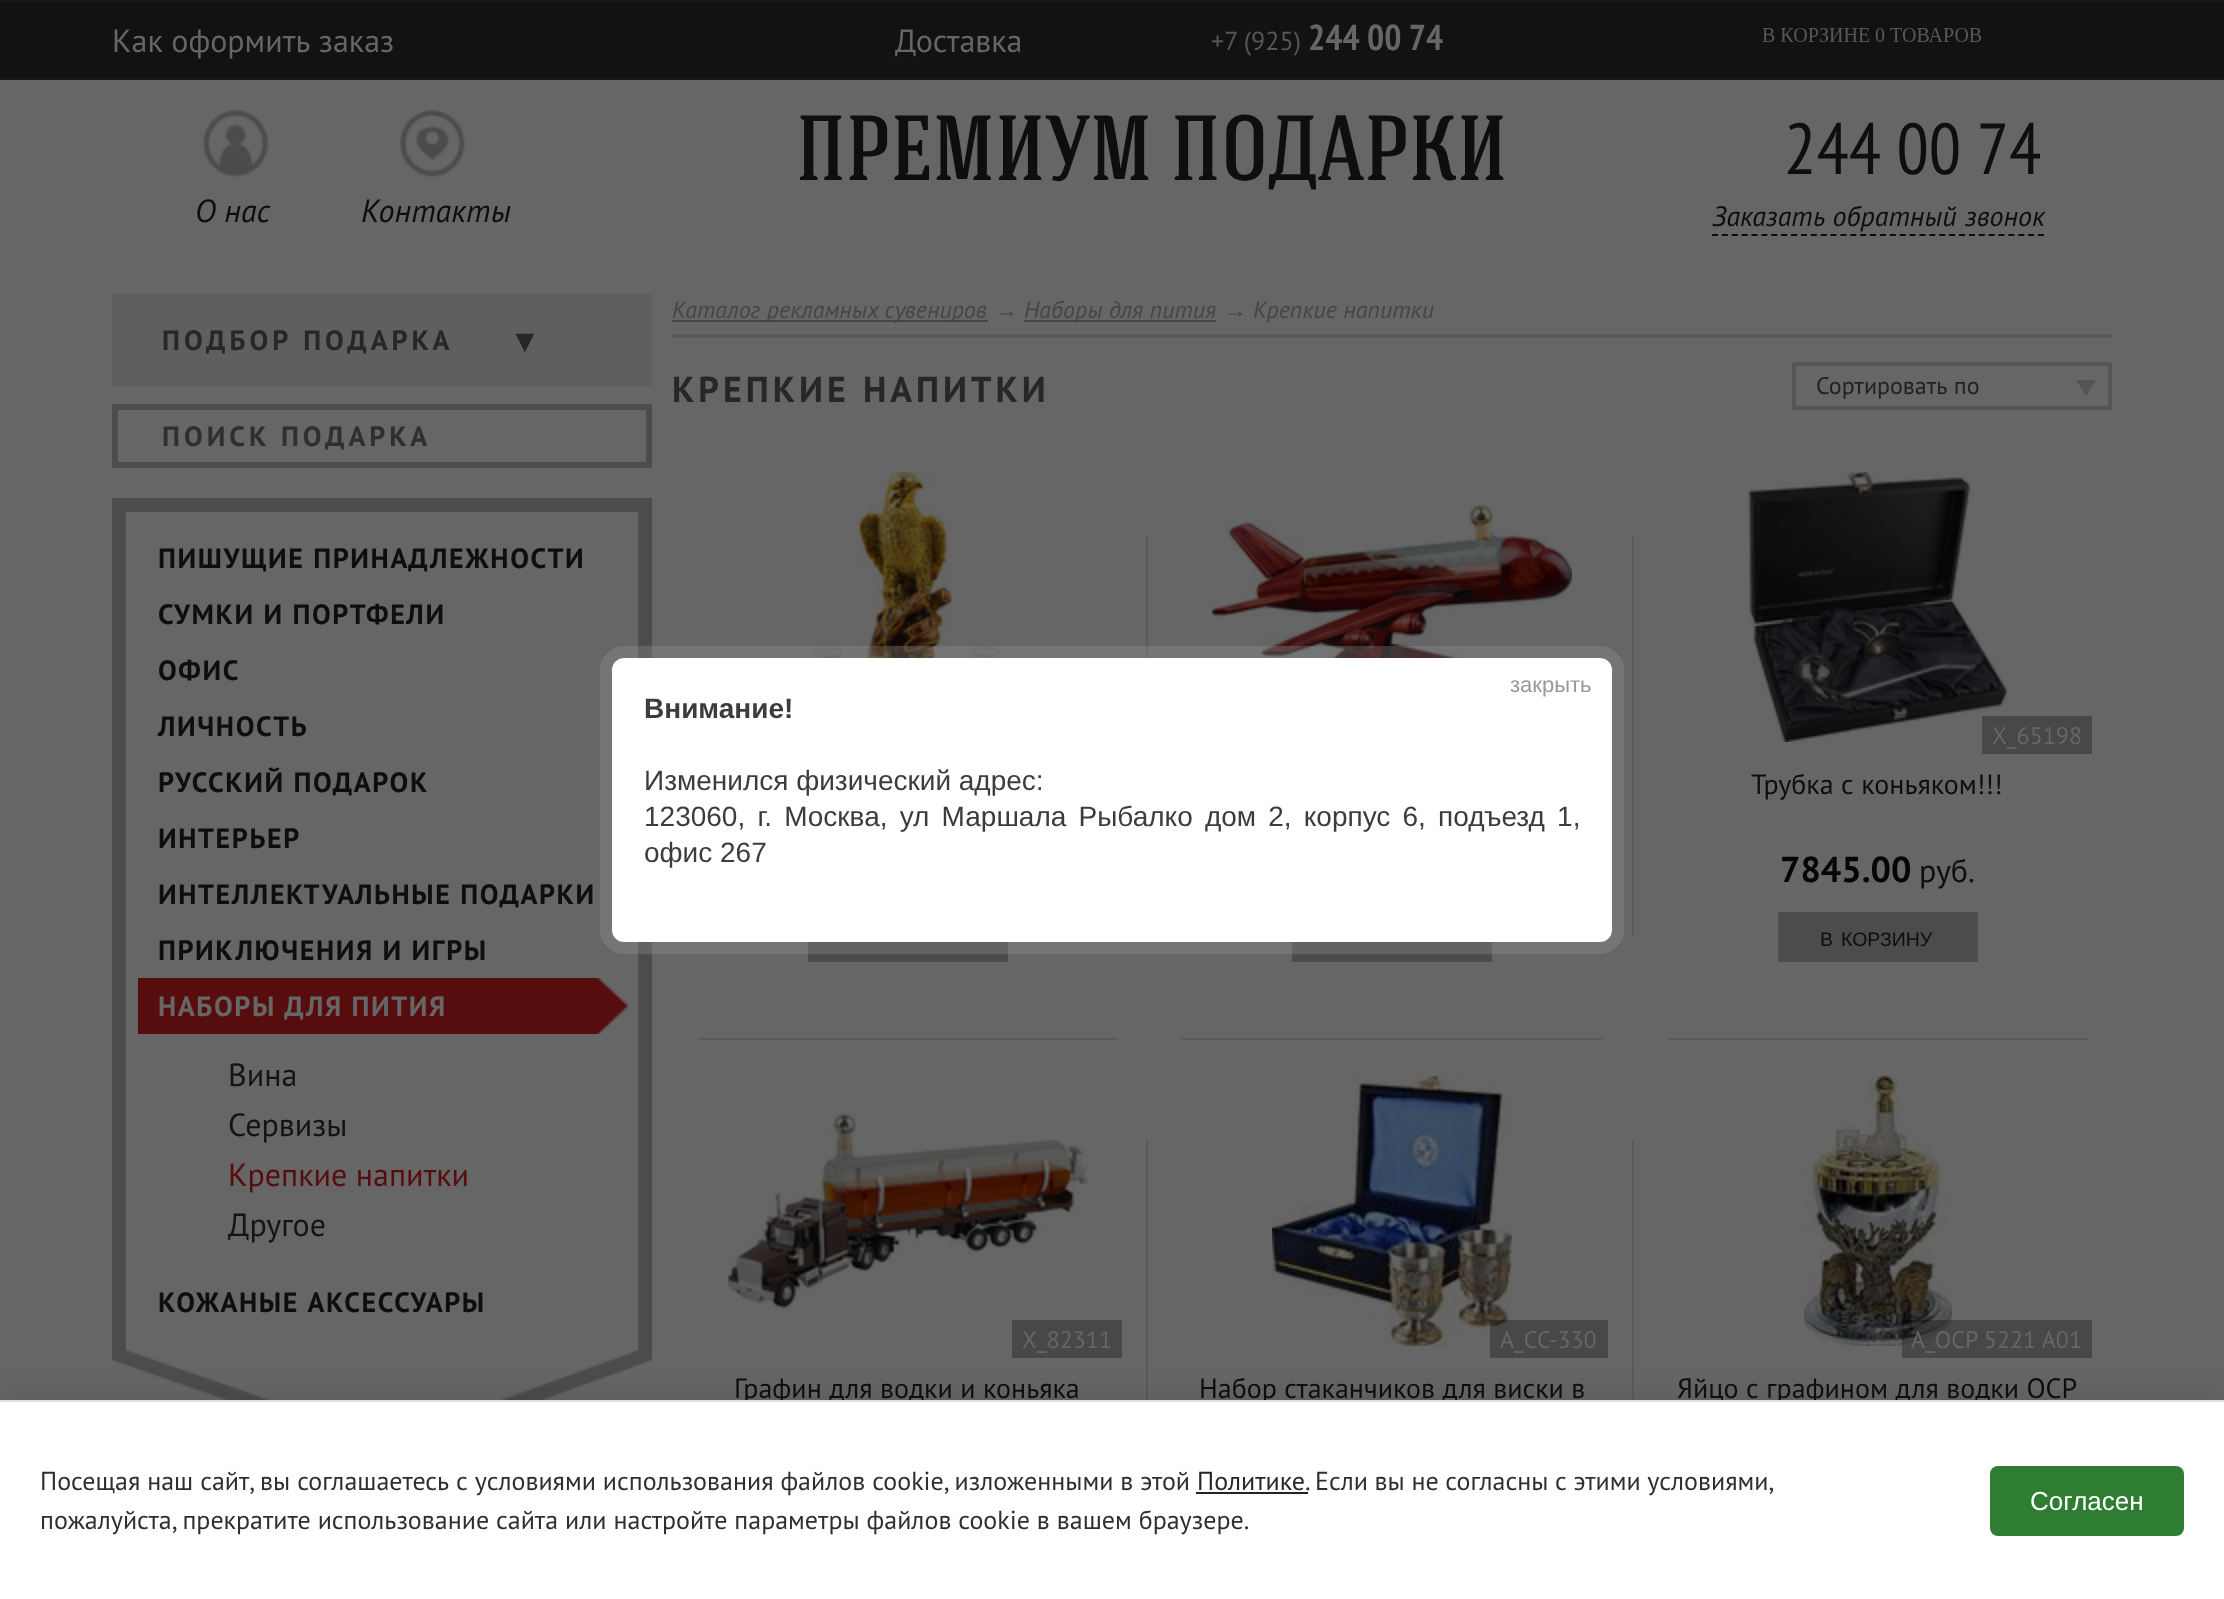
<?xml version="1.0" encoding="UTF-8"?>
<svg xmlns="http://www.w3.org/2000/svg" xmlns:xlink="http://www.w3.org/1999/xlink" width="2224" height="1599">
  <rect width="100%" height="100%" fill="#666666" />
  <image x="0" y="0" width="2224" height="80" xlink:href="image1.png" />
  <image x="1762" y="28" width="220" height="14" xlink:href="image2.png" />
  <image x="203" y="110" width="66" height="67" xlink:href="image3.png" />
  <image x="399" y="110" width="66" height="67" xlink:href="image4.png" />
  <path d="M 1712 235 h 332" fill="none" stroke="#0e0e0e" stroke-width="2" stroke-dasharray="6 3.88" />
  <rect x="112" y="294" width="540" height="92" fill="#5f5f5f" />
  <rect x="115" y="407" width="534" height="58" fill="none" stroke="#4c4c4c" stroke-width="6" />
  <rect x="126" y="498" width="512" height="14" fill="#4c4c4c" />
  <rect x="638" y="498" width="14" height="852" fill="#4c4c4c" />
  <rect x="112" y="498" width="14" height="852" fill="#4c4c4c" />
  <rect x="138" y="978" width="459" height="56" fill="#570d0d" />
  <image x="597" y="978" width="32" height="56" xlink:href="image5.png" />
  <image x="112" y="1350" width="540" height="50" xlink:href="image6.png" />
  <rect x="672" y="334" width="1440" height="4" fill="#5a5a5a" />
  <rect x="672" y="320" width="316" height="2" fill="#464646" />
  <rect x="1024" y="320" width="192" height="2" fill="#464646" />
  <rect x="1794" y="364" width="316" height="44" fill="none" stroke="#555555" stroke-width="4" />
  <path d="M 2076 380 h 20 l -10 16 z" fill="#555555" />
  <image x="805" y="472" width="209" height="186" xlink:href="image7.png" />
  <rect x="808" y="942" width="200" height="20" fill="#4c4c4c" />
  <rect x="1146" y="536" width="2" height="122" fill="#5a5a5a" />
  <image x="1212" y="503" width="360" height="155" xlink:href="image8.png" />
  <rect x="1292" y="942" width="200" height="20" fill="#4c4c4c" />
  <rect x="1632" y="536" width="2" height="400" fill="#5a5a5a" />
  <image x="1747" y="472" width="266" height="270" xlink:href="image9.png" />
  <rect x="1982" y="716" width="110" height="38" fill="#484848" />
  <rect x="1778" y="912" width="200" height="50" fill="#4c4c4c" />
  <rect x="698" y="1038" width="420" height="2" fill="#5a5a5a" />
  <image x="728" y="1112" width="360" height="201" xlink:href="image10.png" />
  <rect x="1012" y="1320" width="110" height="38" fill="#484848" />
  <rect x="1146" y="1140" width="2" height="260" fill="#5a5a5a" />
  <rect x="1182" y="1038" width="420" height="2" fill="#5a5a5a" />
  <image x="1272" y="1076" width="240" height="270" xlink:href="image11.png" />
  <rect x="1490" y="1320" width="118" height="38" fill="#000000" fill-opacity="0.29" />
  <rect x="1632" y="1140" width="2" height="260" fill="#5a5a5a" />
  <rect x="1668" y="1038" width="420" height="2" fill="#5a5a5a" />
  <image x="1804" y="1076" width="148" height="270" xlink:href="image12.png" />
  <rect x="1902" y="1320" width="190" height="38" fill="#000000" fill-opacity="0.29" />
  <rect x="606" y="652" width="1012" height="296" rx="18" fill="none" stroke="#999999" stroke-opacity="0.3" stroke-width="12" />
  <rect x="612" y="658" width="1000" height="284" rx="12" fill="#ffffff" />
  <rect y="1396" width="2224" height="200" fill="#000000" fill-opacity="0.1" filter="blur(15px)" />
  <text x="112" y="52" style="font-family: PT Sans; font-size: 32px; fill: #666666">Как оформить заказ</text>
  <text x="895" y="52" style="font-family: PT Sans; font-size: 32px; fill: #666666">Доставка</text>
  <text x="1211" y="50" style="font-family: PT Sans; font-size: 26px; fill: #575757">+7 (925)</text>
  <text x="1308" y="50" style="font-family: PT Sans Narrow; font-size: 36px; font-weight: bold; fill: #666666">244 00 74</text>
  <text x="195" y="222" style="font-family: PT Sans; font-size: 32px; font-style: italic; fill: #0e0e0e">О нас</text>
  <text x="361" y="222" style="font-family: PT Sans; font-size: 32px; font-style: italic; fill: #0e0e0e">Контакты</text>
  <text x="796" y="180" style="font-family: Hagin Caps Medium; font-size: 92px; font-weight: 500; fill: #0e0e0e">ПРЕМИУМ ПОДАРКИ</text>
  <text x="1784" y="174" style="font-family: PT Sans Narrow; font-size: 72px; fill: #0e0e0e">244 00 74</text>
  <text x="1712" y="226" word-spacing="1" style="font-family: PT Sans; font-size: 28px; font-style: italic; fill: #0e0e0e">Заказать обратный звонок</text>
  <text x="162" y="350" word-spacing="1" style="font-family: PT Sans; font-size: 28px; font-weight: bold; letter-spacing: 4px; fill: #272727">ПОДБОР ПОДАРКА</text>
  <text x="509" y="352" style="font-family: Liberation Sans; font-size: 32px; font-weight: bold; letter-spacing: 11px; fill: #272727">▼</text>
  <text x="162" y="446" style="font-family: PT Sans; font-size: 28px; font-weight: bold; letter-spacing: 4px; fill: #2f2f2f">ПОИСК ПОДАРКА</text>
  <text x="158" y="568" style="font-family: PT Sans; font-size: 28px; font-weight: bold; letter-spacing: 1.6px; fill: #0e0e0e">ПИШУЩИЕ ПРИНАДЛЕЖНОСТИ</text>
  <text x="158" y="624" style="font-family: PT Sans; font-size: 28px; font-weight: bold; letter-spacing: 1.6px; fill: #0e0e0e">СУМКИ И ПОРТФЕЛИ</text>
  <text x="158" y="680" style="font-family: PT Sans; font-size: 28px; font-weight: bold; letter-spacing: 1.6px; fill: #0e0e0e">ОФИС</text>
  <text x="158" y="736" style="font-family: PT Sans; font-size: 28px; font-weight: bold; letter-spacing: 1.6px; fill: #0e0e0e">ЛИЧНОСТЬ</text>
  <text x="158" y="792" style="font-family: PT Sans; font-size: 28px; font-weight: bold; letter-spacing: 1.6px; fill: #0e0e0e">РУССКИЙ ПОДАРОК</text>
  <text x="158" y="848" style="font-family: PT Sans; font-size: 28px; font-weight: bold; letter-spacing: 1.6px; fill: #0e0e0e">ИНТЕРЬЕР</text>
  <text x="158" y="904" style="font-family: PT Sans; font-size: 28px; font-weight: bold; letter-spacing: 1.6px; fill: #0e0e0e">ИНТЕЛЛЕКТУАЛЬНЫЕ ПОДАРКИ</text>
  <text x="158" y="960" style="font-family: PT Sans; font-size: 28px; font-weight: bold; letter-spacing: 1.6px; fill: #0e0e0e">ПРИКЛЮЧЕНИЯ И ИГРЫ</text>
  <text x="158" y="1016" style="font-family: PT Sans; font-size: 28px; font-weight: bold; letter-spacing: 1.6px; fill: #666666">НАБОРЫ ДЛЯ ПИТИЯ</text>
  <text x="228" y="1086" style="font-family: PT Sans; font-size: 32px; fill: #141414">Вина</text>
  <text x="228" y="1136" style="font-family: PT Sans; font-size: 32px; fill: #141414">Сервизы</text>
  <text x="228" y="1186" style="font-family: PT Sans; font-size: 32px; fill: #570d0d">Крепкие напитки</text>
  <text x="228" y="1236" style="font-family: PT Sans; font-size: 32px; fill: #141414">Другое</text>
  <text x="158" y="1312" word-spacing="1" style="font-family: PT Sans; font-size: 28px; font-weight: bold; letter-spacing: 1.6px; fill: #0e0e0e">КОЖАНЫЕ АКСЕССУАРЫ</text>
  <text x="672" y="318" style="font-family: PT Sans; font-size: 24px; font-style: italic; fill: #464646">Каталог рекламных сувениров</text>
  <text x="994" y="318" style="font-family: Liberation Sans; font-size: 24px; font-style: italic; fill: #464646">→</text>
  <text x="1024" y="318" style="font-family: PT Sans; font-size: 24px; font-style: italic; fill: #464646">Наборы для пития</text>
  <text x="1223" y="318" style="font-family: Liberation Sans; font-size: 24px; font-style: italic; fill: #464646">→</text>
  <text x="1253" y="318" style="font-family: PT Sans; font-size: 24px; font-style: italic; fill: #464646">Крепкие напитки</text>
  <text x="672" y="402" style="font-family: PT Sans; font-size: 36px; font-weight: bold; letter-spacing: 4px; fill: #272727">КРЕПКИЕ НАПИТКИ</text>
  <text x="1816" y="394" style="font-family: PT Sans; font-size: 24px; fill: #202020">Сортировать по</text>
  <text x="1992" y="744" style="font-family: PT Sans; font-size: 24px; fill: #666666">X_65198</text>
  <text x="1751" y="794" style="font-family: PT Sans; font-size: 28px; fill: #0e0e0e">Трубка с коньяком!!!</text>
  <text x="1780" y="882" style="font-family: PT Sans; font-size: 36px; font-weight: bold; fill: #060606">7845.00</text>
  <text x="1919" y="882" style="font-family: PT Sans; font-size: 32px; fill: #0e0e0e">руб.</text>
  <text x="1820" y="946" style="font-family: Liberation Sans; font-size: 19.5px; fill: #0e0e0e">В</text>
  <text x="1841" y="946" style="font-family: Liberation Sans; font-size: 19.5px; fill: #0e0e0e">КОРЗИНУ</text>
  <text x="1022" y="1348" style="font-family: PT Sans; font-size: 24px; fill: #666666">X_82311</text>
  <text x="734" y="1398" style="font-family: PT Sans; font-size: 28px; fill: #0e0e0e">Графин для водки и коньяка</text>
  <text x="1500" y="1348" style="font-family: PT Sans; font-size: 24px; fill: #666666">A_CC-330</text>
  <text x="1199" y="1398" style="font-family: PT Sans; font-size: 28px; fill: #0e0e0e">Набор стаканчиков для виски в</text>
  <text x="1911" y="1348" style="font-family: PT Sans; font-size: 24px; fill: #666666">A_OCP 5221 A01</text>
  <text x="1677" y="1398" style="font-family: PT Sans; font-size: 28px; fill: #0e0e0e">Яйцо с графином для водки OCP</text>
  <text x="1510" y="692" style="font-family: Liberation Sans; font-size: 22px; fill: #999999">закрыть</text>
  <text x="644" y="718" style="font-family: Liberation Sans; font-size: 28px; font-weight: bold; fill: #3c3c3c">Внимание!</text>
  <text x="644" y="790" style="font-family: Liberation Sans; font-size: 28px; fill: #3c3c3c">Изменился физический адрес:</text>
  <text x="644" y="826" word-spacing="4.4" style="font-family: Liberation Sans; font-size: 28px; fill: #3c3c3c">123060, г. Москва, ул Маршала Рыбалко дом 2, корпус 6, подъезд 1,</text>
  <text x="644" y="862" style="font-family: Liberation Sans; font-size: 28px; fill: #3c3c3c">офис 267</text>
  <rect y="1402" width="2224" height="197" fill="#ffffff" />
  <rect y="1400" width="2224" height="2" fill="#e0e0e0" />
  <text x="40" y="1490" style="font-family: PT Sans; font-size: 26px; fill: #2f2f2f">Посещая наш сайт, вы соглашаетесь с условиями использования файлов cookie, изложенными в этой</text>
  <text x="1197" y="1490" style="font-family: PT Sans; font-size: 26px; fill: #272727">Политике.</text>
  <rect x="1196" y="1492" width="112" height="2" fill="#232323" />
  <text x="1315" y="1490" word-spacing="-0.25" style="font-family: PT Sans; font-size: 26px; fill: #2f2f2f">Если вы не согласны с этими условиями,</text>
  <text x="40" y="1529" style="font-family: PT Sans; font-size: 26px; fill: #2f2f2f">пожалуйста, прекратите использование сайта или настройте параметры файлов cookie в вашем браузере.</text>
  <rect x="1990" y="1466" width="194" height="70" rx="8" fill="#2e7d32" />
  <text x="2030" y="1510" style="font-family: Liberation Sans; font-size: 26px; fill: #ffffff">Согласен</text>
</svg>
